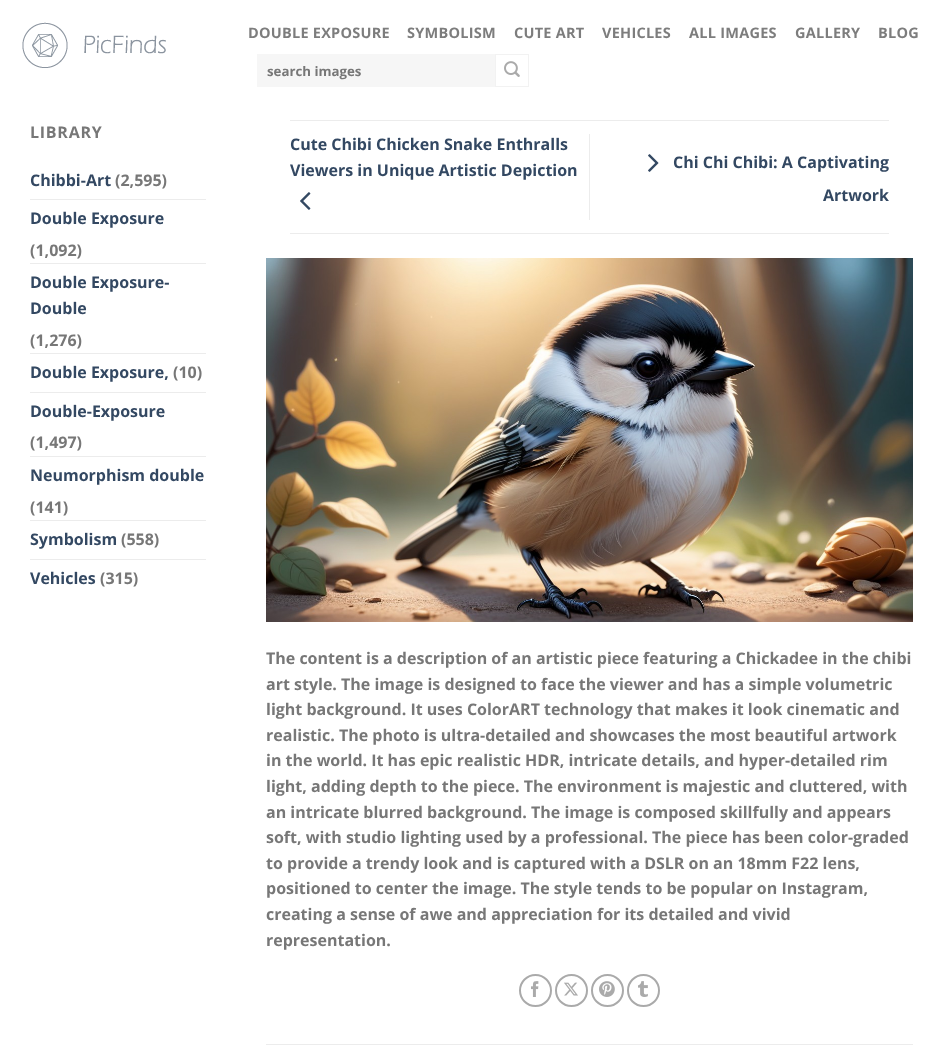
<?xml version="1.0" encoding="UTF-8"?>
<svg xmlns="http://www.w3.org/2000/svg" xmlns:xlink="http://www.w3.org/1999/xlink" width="943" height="1046">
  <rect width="100%" height="100%" fill="#ffffff" />
  <image x="22" y="22" width="144" height="46" xlink:href="image1.png" />
  <rect x="257" y="54" width="238" height="33" fill="#f6f6f6" />
  <rect x="495.5" y="54.5" width="33" height="32" fill="none" stroke="#f2f2f2" />
  <image x="504" y="61" width="16" height="16" xlink:href="image2.png" />
  <rect x="30" y="199" width="176" height="1" fill="#ececec" />
  <rect x="30" y="263" width="176" height="1" fill="#ececec" />
  <rect x="30" y="353" width="176" height="1" fill="#ececec" />
  <rect x="30" y="392" width="176" height="1" fill="#ececec" />
  <rect x="30" y="456" width="176" height="1" fill="#ececec" />
  <rect x="30" y="520" width="176" height="1" fill="#ececec" />
  <rect x="30" y="559" width="176" height="1" fill="#ececec" />
  <rect x="290" y="120" width="599" height="1" fill="#ececec" />
  <rect x="290" y="233" width="599" height="1" fill="#ececec" />
  <image x="300" y="192" width="11" height="18" xlink:href="image3.png" />
  <rect x="589" y="134" width="1" height="86" fill="#ececec" />
  <image x="648" y="154" width="11" height="18" xlink:href="image4.png" />
  <image x="266" y="258" width="647" height="364" xlink:href="image5.png" />
  <circle cx="535.5" cy="990.5" r="15.5" fill="none" stroke="#aaaaaa" stroke-width="2" />
  <image x="531" y="981" width="8" height="16" xlink:href="image6.png" />
  <circle cx="571.5" cy="990.5" r="15.5" fill="none" stroke="#aaaaaa" stroke-width="2" />
  <image x="564" y="982" width="14" height="14" xlink:href="image7.png" />
  <circle cx="607.5" cy="990.5" r="15.5" fill="none" stroke="#aaaaaa" stroke-width="2" />
  <image x="599" y="981" width="16" height="16" xlink:href="image8.png" />
  <circle cx="643.5" cy="990.5" r="15.5" fill="none" stroke="#aaaaaa" stroke-width="2" />
  <image x="638" y="981" width="10" height="16" xlink:href="image9.png" />
  <rect x="266" y="1044" width="647" height="1" fill="#ececec" />
  <text x="248" y="38" style="font-family: Open Sans; font-size: 14.5px; font-weight: bold; letter-spacing: 0.25px; fill: #7d7d7d">DOUBLE EXPOSURE</text>
  <text x="407" y="38" style="font-family: Open Sans; font-size: 14.5px; font-weight: bold; letter-spacing: 0.25px; fill: #7d7d7d">SYMBOLISM</text>
  <text x="514" y="38" style="font-family: Open Sans; font-size: 14.5px; font-weight: bold; letter-spacing: 0.25px; fill: #7d7d7d">CUTE ART</text>
  <text x="602" y="38" style="font-family: Open Sans; font-size: 14.5px; font-weight: bold; letter-spacing: 0.25px; fill: #7d7d7d">VEHICLES</text>
  <text x="689" y="38" style="font-family: Open Sans; font-size: 14.5px; font-weight: bold; letter-spacing: 0.25px; fill: #7d7d7d">ALL IMAGES</text>
  <text x="795" y="38" style="font-family: Open Sans; font-size: 14.5px; font-weight: bold; letter-spacing: 0.25px; fill: #7d7d7d">GALLERY</text>
  <text x="878" y="38" style="font-family: Open Sans; font-size: 14.5px; font-weight: bold; letter-spacing: 0.25px; fill: #7d7d7d">BLOG</text>
  <text x="267" y="76" style="font-family: Open Sans; font-size: 13.25px; font-weight: bold; fill: #777777">search images</text>
  <text x="30" y="138" style="font-family: Open Sans; font-size: 16px; font-weight: bold; letter-spacing: 0.75px; fill: #777777">LIBRARY</text>
  <text x="30" y="186" style="font-family: Open Sans; font-size: 16px; font-weight: bold; fill: #334862">Chibbi-Art</text>
  <text x="115" y="186" style="font-family: Open Sans; font-size: 16px; font-weight: bold; fill: #777777">(2,595)</text>
  <text x="30" y="224" style="font-family: Open Sans; font-size: 16px; font-weight: bold; fill: #334862">Double Exposure</text>
  <text x="30" y="256" style="font-family: Open Sans; font-size: 16px; font-weight: bold; fill: #777777">(1,092)</text>
  <text x="30" y="288" style="font-family: Open Sans; font-size: 16px; font-weight: bold; fill: #334862">Double Exposure-</text>
  <text x="30" y="314" style="font-family: Open Sans; font-size: 16px; font-weight: bold; fill: #334862">Double</text>
  <text x="30" y="346" style="font-family: Open Sans; font-size: 16px; font-weight: bold; fill: #777777">(1,276)</text>
  <text x="30" y="378" style="font-family: Open Sans; font-size: 16px; font-weight: bold; fill: #334862">Double Exposure,</text>
  <text x="173" y="378" style="font-family: Open Sans; font-size: 16px; font-weight: bold; fill: #777777">(10)</text>
  <text x="30" y="417" style="font-family: Open Sans; font-size: 16px; font-weight: bold; fill: #334862">Double-Exposure</text>
  <text x="30" y="448" style="font-family: Open Sans; font-size: 16px; font-weight: bold; fill: #777777">(1,497)</text>
  <text x="30" y="481" style="font-family: Open Sans; font-size: 16px; font-weight: bold; fill: #334862">Neumorphism double</text>
  <text x="30" y="513" style="font-family: Open Sans; font-size: 16px; font-weight: bold; fill: #777777">(141)</text>
  <text x="30" y="545" style="font-family: Open Sans; font-size: 16px; font-weight: bold; fill: #334862">Symbolism</text>
  <text x="121" y="545" style="font-family: Open Sans; font-size: 16px; font-weight: bold; fill: #777777">(558)</text>
  <text x="30" y="584" style="font-family: Open Sans; font-size: 16px; font-weight: bold; fill: #334862">Vehicles</text>
  <text x="100" y="584" style="font-family: Open Sans; font-size: 16px; font-weight: bold; fill: #777777">(315)</text>
  <text x="290" y="150" style="font-family: Open Sans; font-size: 16px; font-weight: bold; fill: #334862">Cute Chibi Chicken Snake Enthralls</text>
  <text x="290" y="176" style="font-family: Open Sans; font-size: 16px; font-weight: bold; fill: #334862">Viewers in Unique Artistic Depiction</text>
  <text x="673" y="168" style="font-family: Open Sans; font-size: 16px; font-weight: bold; fill: #334862">Chi Chi Chibi: A Captivating</text>
  <text x="823" y="201" style="font-family: Open Sans; font-size: 16px; font-weight: bold; fill: #334862">Artwork</text>
  <text x="266" y="664" style="font-family: Open Sans; font-size: 16px; font-weight: bold; fill: #777777">The content is a description of an artistic piece featuring a Chickadee in the chibi</text>
  <text x="266" y="690" style="font-family: Open Sans; font-size: 16px; font-weight: bold; fill: #777777">art style. The image is designed to face the viewer and has a simple volumetric</text>
  <text x="266" y="715" style="font-family: Open Sans; font-size: 16px; font-weight: bold; fill: #777777">light background. It uses ColorART technology that makes it look cinematic and</text>
  <text x="266" y="741" style="font-family: Open Sans; font-size: 16px; font-weight: bold; fill: #777777">realistic. The photo is ultra-detailed and showcases the most beautiful artwork</text>
  <text x="266" y="766" style="font-family: Open Sans; font-size: 16px; font-weight: bold; fill: #777777">in the world. It has epic realistic HDR, intricate details, and hyper-detailed rim</text>
  <text x="266" y="792" style="font-family: Open Sans; font-size: 16px; font-weight: bold; fill: #777777">light, adding depth to the piece. The environment is majestic and cluttered, with</text>
  <text x="266" y="818" style="font-family: Open Sans; font-size: 16px; font-weight: bold; fill: #777777">an intricate blurred background. The image is composed skillfully and appears</text>
  <text x="266" y="843" style="font-family: Open Sans; font-size: 16px; font-weight: bold; fill: #777777">soft, with studio lighting used by a professional. The piece has been color-graded</text>
  <text x="266" y="869" style="font-family: Open Sans; font-size: 16px; font-weight: bold; fill: #777777">to provide a trendy look and is captured with a DSLR on an 18mm F22 lens,</text>
  <text x="266" y="894" style="font-family: Open Sans; font-size: 16px; font-weight: bold; fill: #777777">positioned to center the image. The style tends to be popular on Instagram,</text>
  <text x="266" y="920" style="font-family: Open Sans; font-size: 16px; font-weight: bold; fill: #777777">creating a sense of awe and appreciation for its detailed and vivid</text>
  <text x="266" y="946" style="font-family: Open Sans; font-size: 16px; font-weight: bold; fill: #777777">representation.</text>
</svg>
